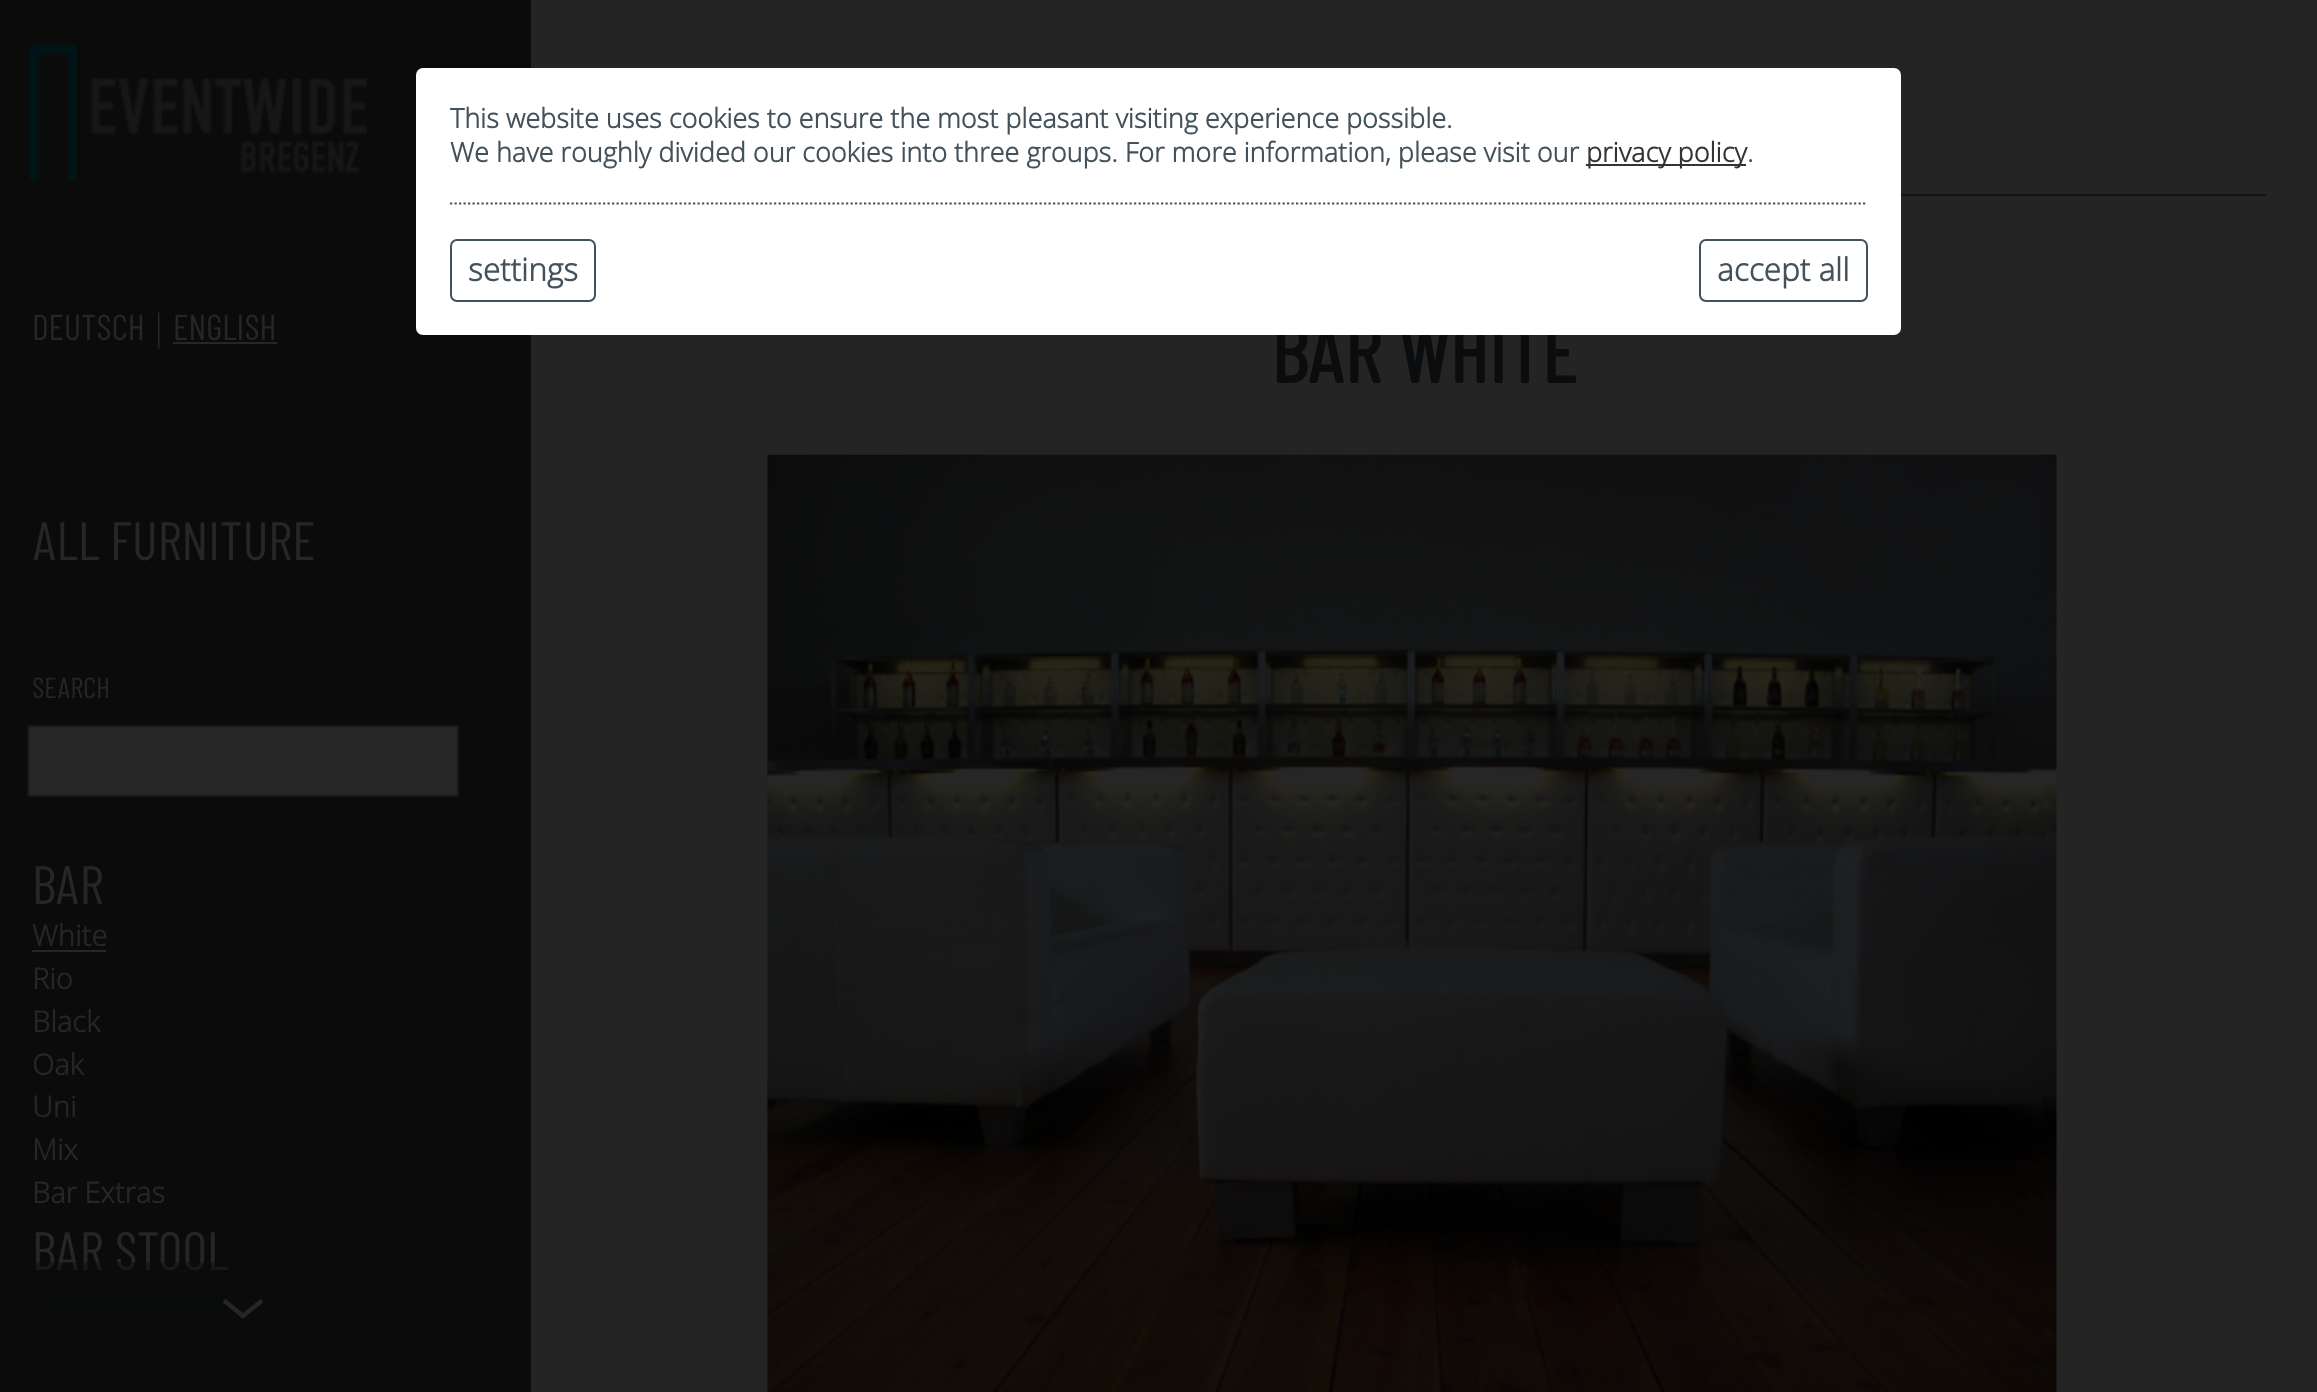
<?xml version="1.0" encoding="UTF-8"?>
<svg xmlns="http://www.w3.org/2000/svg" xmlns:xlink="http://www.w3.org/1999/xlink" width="2317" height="1392">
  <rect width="100%" height="100%" fill="#0b0b0b" />
  <image x="28" y="44" width="340" height="137" xlink:href="image1.png" />
  <rect x="173" y="342" width="104" height="2" fill="#262626" />
  <rect x="28" y="726" width="430" height="70" fill="#262626" stroke="#171717" stroke-width="2" />
  <rect x="32" y="950" width="74" height="2" fill="#262626" />
  <rect x="531" width="1786" height="1392" fill="#242424" />
  <rect x="1901" y="194" width="365" height="2" fill="#131314" />
  <image x="767" y="454" width="1290" height="938" xlink:href="image3.png" />
  <text x="32" y="340" style="font-family: Barlow Condensed; font-size: 36px; fill: #262626">DEUTSCH</text>
  <text x="149" y="340" style="font-family: Open Sans; font-size: 36px; font-weight: 300; fill: #262626">|</text>
  <text x="173" y="340" style="font-family: Barlow Condensed; font-size: 36px; fill: #262626">ENGLISH</text>
  <text x="32" y="560" style="font-family: Barlow Condensed; font-size: 54px; fill: #262626">ALL FURNITURE</text>
  <text x="32" y="698" style="font-family: Barlow Condensed; font-size: 29px; fill: #262626">SEARCH</text>
  <text x="32" y="904" style="font-family: Barlow Condensed; font-size: 54px; fill: #262626">BAR</text>
  <text x="32" y="946" style="font-family: Open Sans; font-size: 29px; font-weight: bold; fill: #262626">White</text>
  <text x="32" y="989" style="font-family: Open Sans; font-size: 29px; font-weight: bold; fill: #262626">Rio</text>
  <text x="32" y="1032" style="font-family: Open Sans; font-size: 29px; font-weight: bold; fill: #262626">Black</text>
  <text x="32" y="1075" style="font-family: Open Sans; font-size: 29px; font-weight: bold; fill: #262626">Oak</text>
  <text x="32" y="1117" style="font-family: Open Sans; font-size: 29px; font-weight: bold; fill: #262626">Uni</text>
  <text x="32" y="1160" style="font-family: Open Sans; font-size: 29px; font-weight: bold; fill: #262626">Mix</text>
  <text x="32" y="1203" style="font-family: Open Sans; font-size: 29px; font-weight: bold; fill: #262626">Bar Extras</text>
  <text x="32" y="1270" style="font-family: Barlow Condensed; font-size: 54px; fill: #262626">BAR STOOL</text>
  <image x="35" y="1262" width="193" height="76" xlink:href="image2.png" />
  <path d="M 224 1300.5 l 19 15.5 l 19 -15.5" fill="none" stroke="#262626" stroke-width="4.5" />
  <text x="1271" y="383" style="font-family: Barlow Condensed; font-size: 83px; font-weight: bold; fill: #0a0c0e">BAR WHITE</text>
  <rect x="416" y="68" width="1485" height="267" rx="7" fill="#ffffff" />
  <text x="1747" y="162" style="font-family: Open Sans; font-size: 27px; font-weight: bold; fill: #43525a">.</text>
  <rect x="1586" y="164" width="160" height="2" fill="#333333" />
  <text x="1586" y="162" style="font-family: Open Sans; font-size: 27px; font-weight: bold; fill: #333333">privacy policy</text>
  <text x="450" y="162" style="font-family: Open Sans; font-size: 27px; font-weight: bold; fill: #43525a">We have roughly divided our cookies into three groups. For more information, please visit our</text>
  <text x="450" y="128" style="font-family: Open Sans; font-size: 27px; font-weight: bold; fill: #43525a">This website uses cookies to ensure the most pleasant visiting experience possible.</text>
  <rect x="451" y="240" width="144" height="61" rx="6" fill="none" stroke="#43525a" stroke-width="2" />
  <text x="468" y="281" style="font-family: Open Sans; font-size: 31.5px; font-weight: bold; fill: #43525a">settings</text>
  <rect x="1700" y="240" width="167" height="61" rx="6" fill="none" stroke="#43525a" stroke-width="2" />
  <text x="1717" y="281" style="font-family: Open Sans; font-size: 31.5px; font-weight: bold; fill: #43525a">accept all</text>
  <path d="M 450 203.5 h 1417.5" fill="none" stroke="#43525a" stroke-width="2.2" stroke-dasharray="2.25 2.25" />
</svg>
